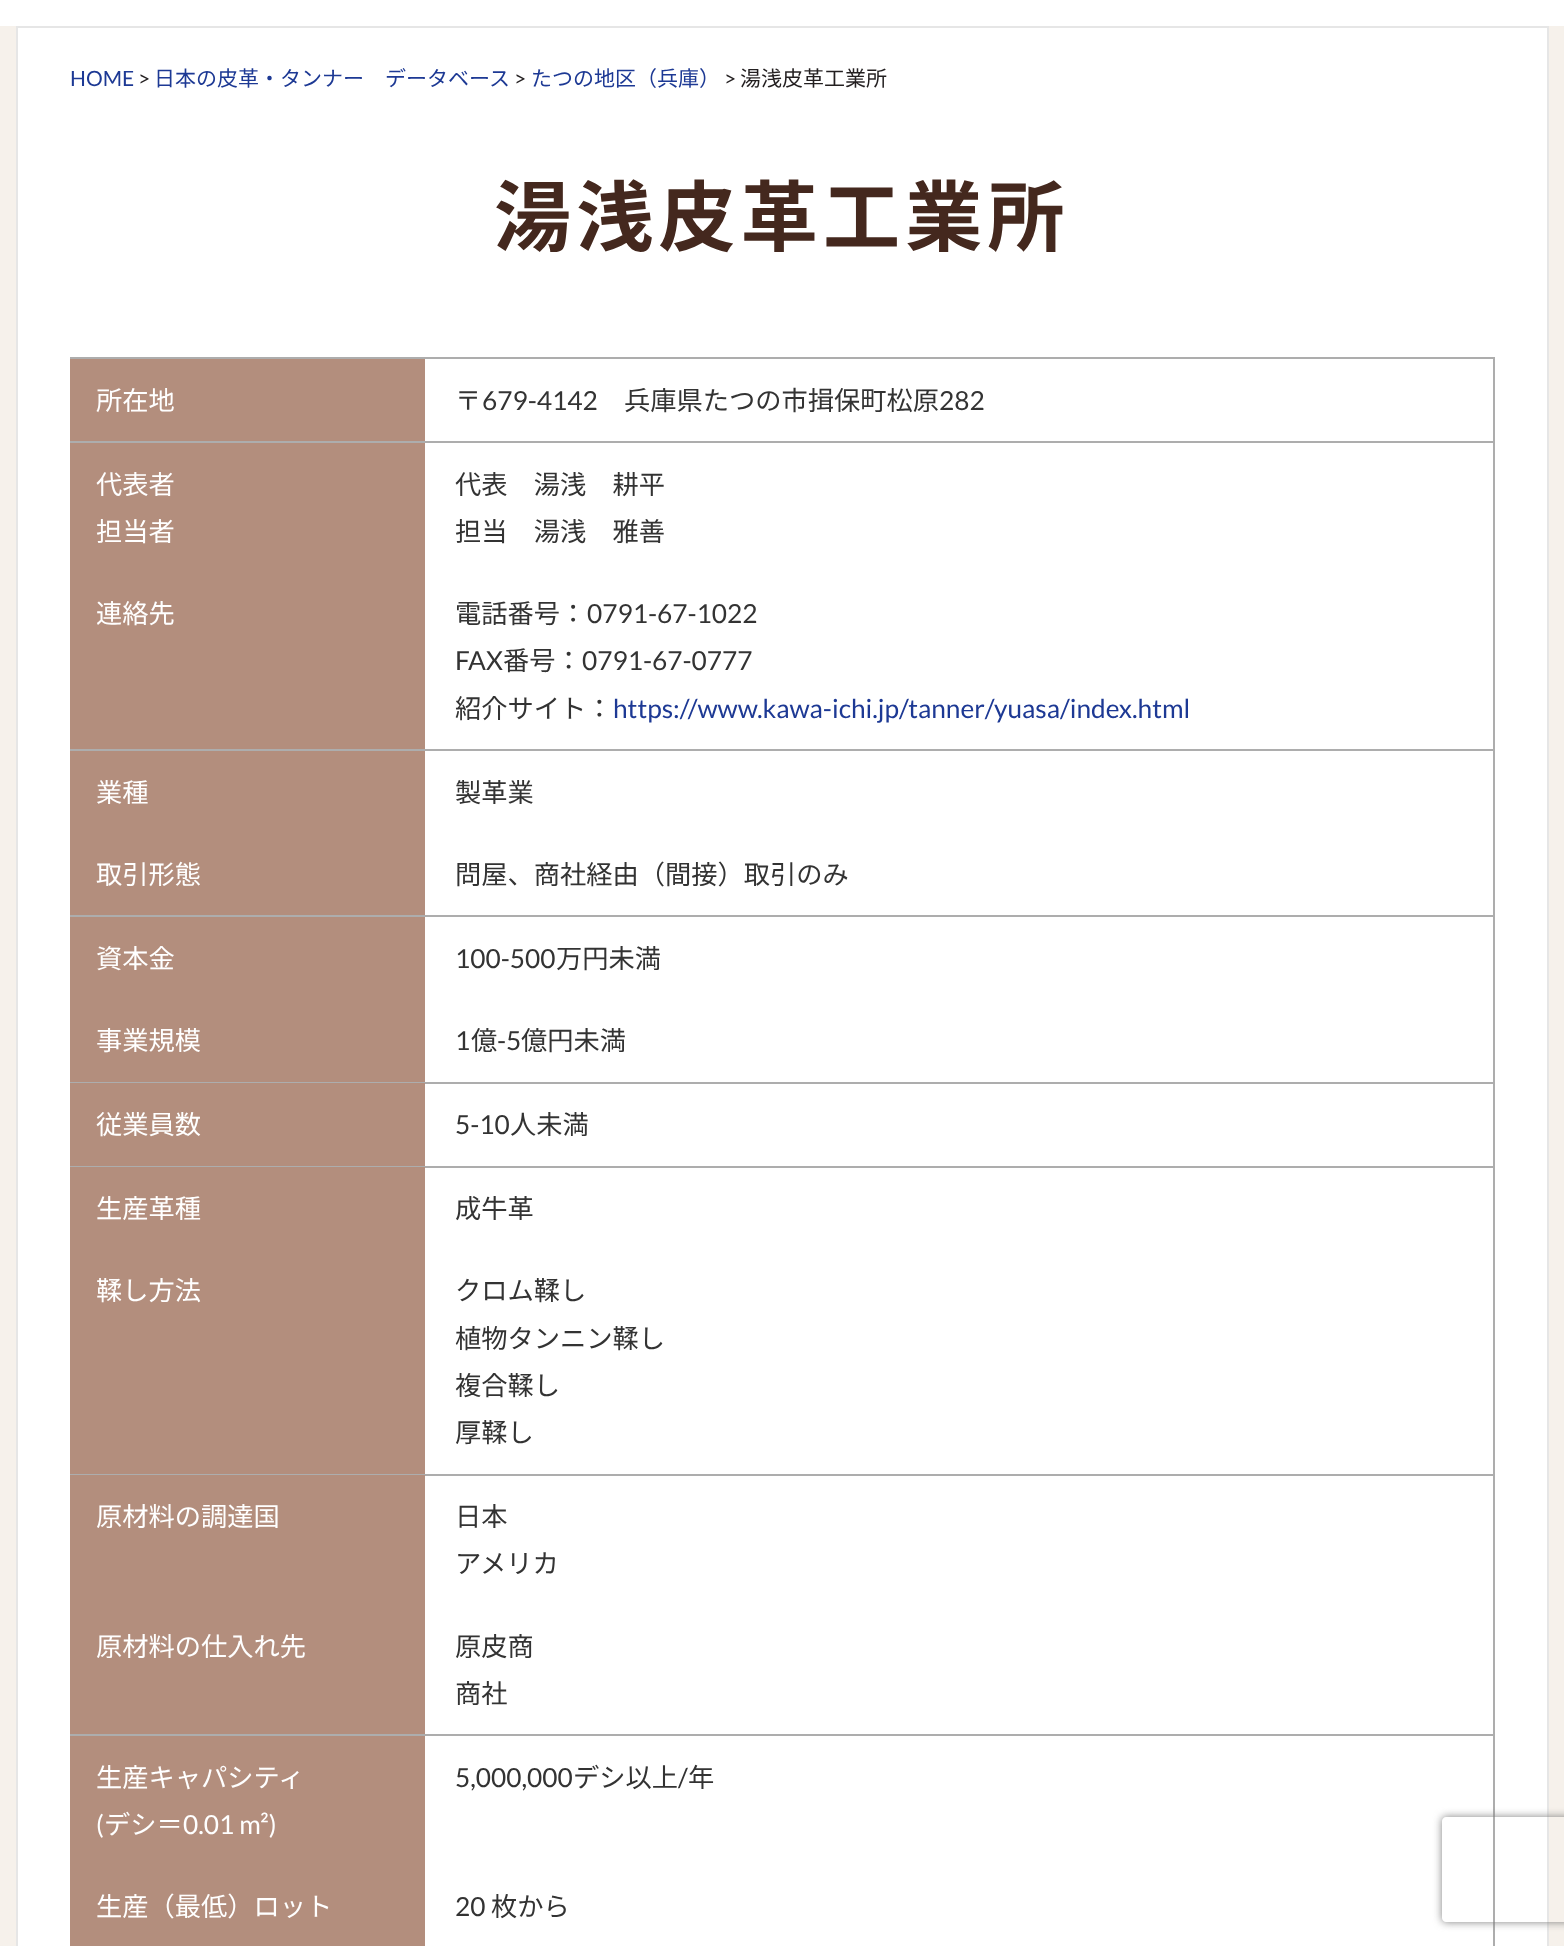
<?xml version="1.0" encoding="UTF-8"?>
<svg xmlns="http://www.w3.org/2000/svg" xmlns:xlink="http://www.w3.org/1999/xlink" width="1564" height="1946">
  <defs>
    <clipPath id="clip1"><path d="M 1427 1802 h 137 v 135 h -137 z m 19 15 h 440 c 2 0 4 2 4 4 v 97 c 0 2 -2 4 -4 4 h -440 c -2 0 -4 -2 -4 -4 v -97 c 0 -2 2 -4 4 -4 z" clip-rule="evenodd" /></clipPath>
  </defs>
  <rect width="100%" height="100%" fill="#ffffff" />
  <rect y="26" width="1564" height="1920" fill="#f6f1eb" />
  <rect x="17" y="27" width="1531" height="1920" fill="#ffffff" stroke="#e6e6e6" stroke-width="2" />
  <rect x="70" y="357" width="1425" height="2" fill="#adadad" />
  <rect x="1493" y="359" width="2" height="724" fill="#adadad" />
  <rect x="70" y="441" width="1425" height="2" fill="#adadad" />
  <rect x="70" y="359" width="355" height="82" fill="#b38e7d" />
  <rect x="70" y="749" width="1425" height="2" fill="#adadad" />
  <rect x="70" y="443" width="355" height="306" fill="#b38e7d" />
  <rect x="70" y="915" width="1425" height="2" fill="#adadad" />
  <rect x="70" y="751" width="355" height="164" fill="#b38e7d" />
  <rect x="70" y="1082" width="1425" height="2" fill="#adadad" />
  <rect x="70" y="917" width="355" height="165" fill="#b38e7d" />
  <rect x="1493" y="1083" width="2" height="84" fill="#adadad" />
  <rect x="70" y="1166" width="1425" height="2" fill="#adadad" />
  <rect x="70" y="1083" width="355" height="83" fill="#b38e7d" />
  <rect x="1493" y="1167" width="2" height="308" fill="#adadad" />
  <rect x="70" y="1474" width="1425" height="2" fill="#adadad" />
  <rect x="70" y="1167" width="355" height="307" fill="#b38e7d" />
  <rect x="1493" y="1475" width="2" height="471" fill="#adadad" />
  <rect x="70" y="1734" width="1425" height="2" fill="#adadad" />
  <rect x="70" y="1475" width="355" height="259" fill="#b38e7d" />
  <rect x="70" y="1736" width="355" height="210" fill="#b38e7d" />
  <g clip-path="url(#clip1)">
    <rect x="1442" y="1817" width="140" height="105" rx="4" fill="#808080" filter="blur(4.5px)" />
  </g>
  <text x="70" y="86" style="font-family: Lato; font-size: 21px; fill: #1d3994">HOME</text>
  <text x="138" y="86" style="font-family: Lato; font-size: 21px; fill: #231f20">&gt;</text>
  <text x="154" y="86" style="font-family: Noto Sans JP; font-size: 21px; fill: #1d3994">日本の皮革・タンナー　データベース</text>
  <text x="514" y="86" style="font-family: Lato; font-size: 21px; fill: #231f20">&gt;</text>
  <text x="531" y="86" style="font-family: Noto Sans JP; font-size: 21px; fill: #1d3994">たつの地区（兵庫）</text>
  <text x="724" y="86" style="font-family: Lato; font-size: 21px; fill: #231f20">&gt;</text>
  <text x="740" y="86" style="font-family: Noto Sans JP; font-size: 21px; fill: #231f20">湯浅皮革工業所</text>
  <text x="494" y="245" style="font-family: Noto Sans JP; font-size: 77px; font-weight: bold; letter-spacing: 5.25px; fill: #44281e">湯浅皮革工業所</text>
  <text x="96" y="410" style="font-family: Noto Sans JP; font-size: 26.25px; fill: #ffffff">所在地</text>
  <text x="455" y="410" style="font-family: Noto Sans JP; font-size: 26.25px; fill: #333333">〒</text>
  <text x="482" y="410" style="font-family: Lato; font-size: 26.25px; fill: #333333">679-4142</text>
  <text x="624" y="410" style="font-family: Noto Sans JP; font-size: 26.25px; fill: #333333">兵庫県たつの市揖保町松原</text>
  <text x="939" y="410" style="font-family: Lato; font-size: 26.25px; fill: #333333">282</text>
  <text x="96" y="494" style="font-family: Noto Sans JP; font-size: 26.25px; fill: #ffffff">代表者</text>
  <text x="96" y="541" style="font-family: Noto Sans JP; font-size: 26.25px; fill: #ffffff">担当者</text>
  <text x="455" y="494" style="font-family: Noto Sans JP; font-size: 26.25px; fill: #333333">代表　湯浅　耕平</text>
  <text x="455" y="541" style="font-family: Noto Sans JP; font-size: 26.25px; fill: #333333">担当　湯浅　雅善</text>
  <text x="96" y="623" style="font-family: Noto Sans JP; font-size: 26.25px; fill: #ffffff">連絡先</text>
  <text x="455" y="623" style="font-family: Noto Sans JP; font-size: 26.25px; fill: #333333">電話番号：</text>
  <text x="587" y="623" style="font-family: Lato; font-size: 26.25px; fill: #333333">0791-67-1022</text>
  <text x="455" y="670" style="font-family: Lato; font-size: 26.25px; fill: #333333">FAX</text>
  <text x="503" y="670" style="font-family: Noto Sans JP; font-size: 26.25px; fill: #333333">番号：</text>
  <text x="582" y="670" style="font-family: Lato; font-size: 26.25px; fill: #333333">0791-67-0777</text>
  <text x="455" y="718" style="font-family: Noto Sans JP; font-size: 26.25px; fill: #333333">紹介サイト：</text>
  <text x="613" y="718" style="font-family: Lato; font-size: 26.25px; fill: #1d3994">https://www.kawa-ichi.jp/tanner/yuasa/index.html</text>
  <text x="96" y="802" style="font-family: Noto Sans JP; font-size: 26.25px; fill: #ffffff">業種</text>
  <text x="455" y="802" style="font-family: Noto Sans JP; font-size: 26.25px; fill: #333333">製革業</text>
  <text x="96" y="884" style="font-family: Noto Sans JP; font-size: 26.25px; fill: #ffffff">取引形態</text>
  <text x="455" y="884" style="font-family: Noto Sans JP; font-size: 26.25px; fill: #333333">問屋、商社経由（間接）取引のみ</text>
  <text x="96" y="968" style="font-family: Noto Sans JP; font-size: 26.25px; fill: #ffffff">資本金</text>
  <text x="455" y="968" style="font-family: Lato; font-size: 26.25px; fill: #333333">100-500</text>
  <text x="556" y="968" style="font-family: Noto Sans JP; font-size: 26.25px; fill: #333333">万円未満</text>
  <text x="96" y="1050" style="font-family: Noto Sans JP; font-size: 26.25px; fill: #ffffff">事業規模</text>
  <text x="455" y="1050" style="font-family: Lato; font-size: 26.25px; fill: #333333">1</text>
  <text x="471" y="1050" style="font-family: Noto Sans JP; font-size: 26.25px; fill: #333333">億</text>
  <text x="497" y="1050" style="font-family: Lato; font-size: 26.25px; fill: #333333">-5</text>
  <text x="521" y="1050" style="font-family: Noto Sans JP; font-size: 26.25px; fill: #333333">億円未満</text>
  <text x="96" y="1134" style="font-family: Noto Sans JP; font-size: 26.25px; fill: #ffffff">従業員数</text>
  <text x="455" y="1134" style="font-family: Lato; font-size: 26.25px; fill: #333333">5-10</text>
  <text x="510" y="1134" style="font-family: Noto Sans JP; font-size: 26.25px; fill: #333333">人未満</text>
  <text x="96" y="1218" style="font-family: Noto Sans JP; font-size: 26.25px; fill: #ffffff">生産革種</text>
  <text x="455" y="1218" style="font-family: Noto Sans JP; font-size: 26.25px; fill: #333333">成牛革</text>
  <text x="96" y="1300" style="font-family: Noto Sans JP; font-size: 26.25px; fill: #ffffff">鞣し方法</text>
  <text x="455" y="1300" style="font-family: Noto Sans JP; font-size: 26.25px; fill: #333333">クロム鞣し</text>
  <text x="455" y="1348" style="font-family: Noto Sans JP; font-size: 26.25px; fill: #333333">植物タンニン鞣し</text>
  <text x="455" y="1395" style="font-family: Noto Sans JP; font-size: 26.25px; fill: #333333">複合鞣し</text>
  <text x="455" y="1442" style="font-family: Noto Sans JP; font-size: 26.25px; fill: #333333">厚鞣し</text>
  <text x="96" y="1526" style="font-family: Noto Sans JP; font-size: 26.25px; fill: #ffffff">原材料の調達国</text>
  <text x="455" y="1526" style="font-family: Noto Sans JP; font-size: 26.25px; fill: #333333">日本</text>
  <text x="455" y="1573" style="font-family: Noto Sans JP; font-size: 26.25px; fill: #333333">アメリカ</text>
  <text x="96" y="1656" style="font-family: Noto Sans JP; font-size: 26.25px; fill: #ffffff">原材料の仕入れ先</text>
  <text x="455" y="1656" style="font-family: Noto Sans JP; font-size: 26.25px; fill: #333333">原皮商</text>
  <text x="455" y="1703" style="font-family: Noto Sans JP; font-size: 26.25px; fill: #333333">商社</text>
  <text x="96" y="1787" style="font-family: Noto Sans JP; font-size: 26.25px; fill: #ffffff">生産キャパシティ</text>
  <text x="96" y="1834" style="font-family: Lato; font-size: 26.25px; fill: #ffffff">(</text>
  <text x="104" y="1834" style="font-family: Noto Sans JP; font-size: 26.25px; fill: #ffffff">デシ＝</text>
  <text x="183" y="1834" style="font-family: Lato; font-size: 26.25px; fill: #ffffff">0.01 m²)</text>
  <text x="455" y="1787" style="font-family: Lato; font-size: 26.25px; fill: #333333">5,000,000</text>
  <text x="573" y="1787" style="font-family: Noto Sans JP; font-size: 26.25px; fill: #333333">デシ以上</text>
  <text x="678" y="1787" style="font-family: Lato; font-size: 26.25px; fill: #333333">/</text>
  <text x="688" y="1787" style="font-family: Noto Sans JP; font-size: 26.25px; fill: #333333">年</text>
  <text x="96" y="1916" style="font-family: Noto Sans JP; font-size: 26.25px; fill: #ffffff">生産（最低）ロット</text>
  <text x="455" y="1916" style="font-family: Lato; font-size: 26.25px; fill: #333333">20</text>
  <text x="491" y="1916" style="font-family: Noto Sans JP; font-size: 26.25px; fill: #333333">枚から</text>
</svg>
